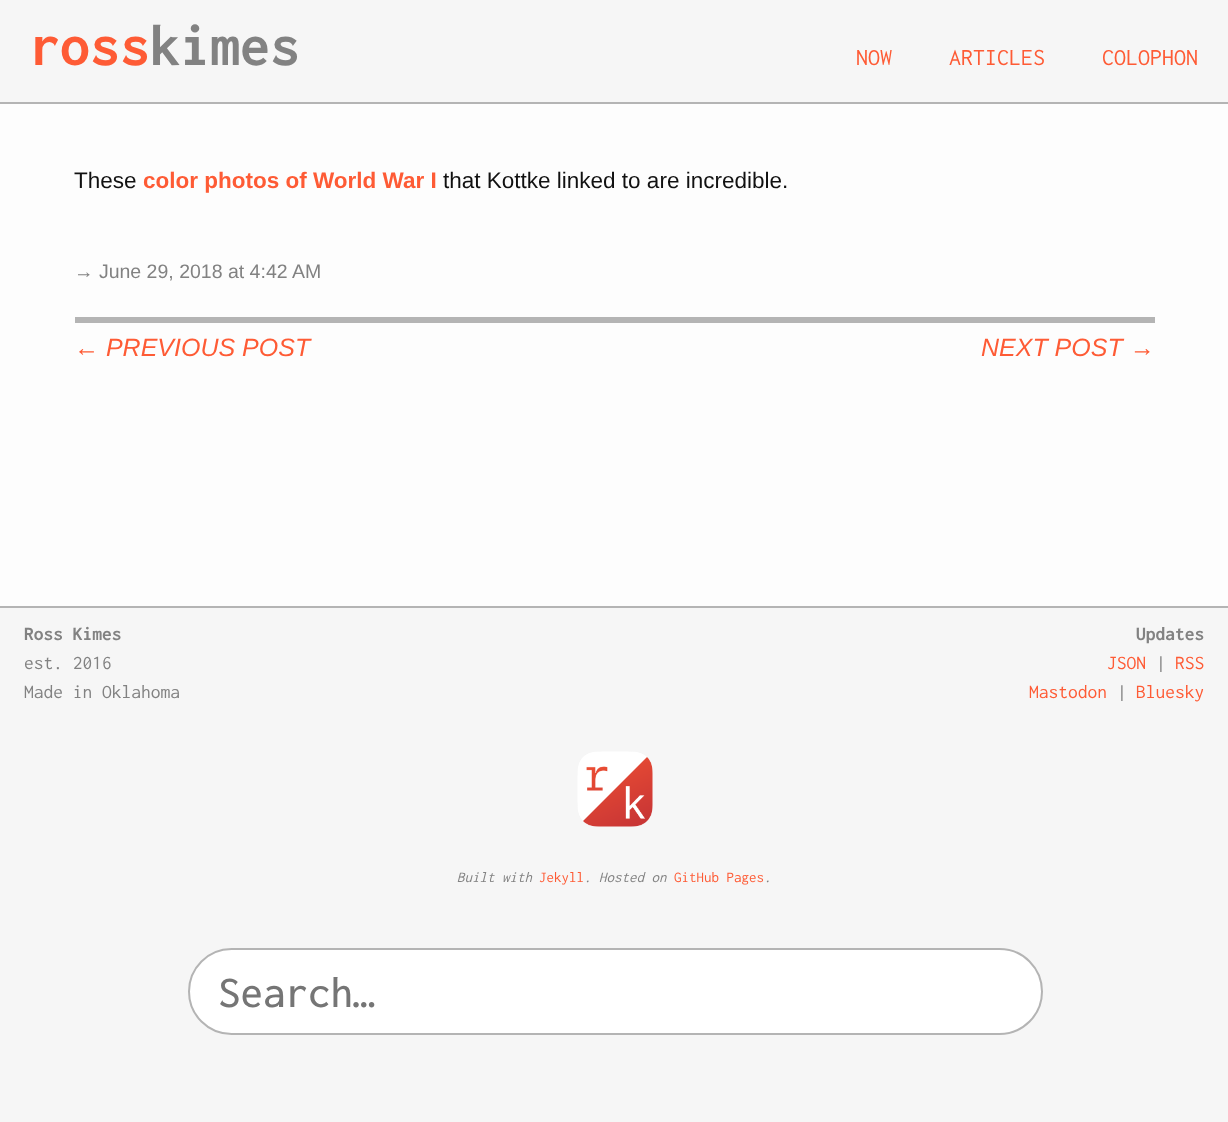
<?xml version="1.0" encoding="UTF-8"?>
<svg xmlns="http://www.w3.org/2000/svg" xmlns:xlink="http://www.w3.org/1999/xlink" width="1228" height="1122">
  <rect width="100%" height="100%" fill="#f6f6f6" />
  <rect y="102" width="1228" height="2" fill="#b4b4b4" />
  <rect y="104" width="1228" height="502" fill="#fdfdfd" />
  <rect x="75" y="317" width="1080" height="6" fill="#b4b4b4" />
  <rect y="606" width="1228" height="2" fill="#b4b4b4" />
  <image x="577" y="751" width="76" height="76" xlink:href="image1.png" />
  <rect x="189" y="949" width="853" height="85" rx="42.5" fill="#ffffff" stroke="#b4b4b4" stroke-width="2" />
  <text x="30" y="65" style="font-family: Inconsolata; font-size: 60px; font-weight: bold; fill: #fe5b35">ross</text>
  <text x="150" y="65" style="font-family: Inconsolata; font-size: 60px; font-weight: bold; fill: #828282">kimes</text>
  <text x="856" y="65" style="font-family: Inconsolata; font-size: 24px; fill: #fe5b35">NOW</text>
  <text x="949" y="65" style="font-family: Inconsolata; font-size: 24px; fill: #fe5b35">ARTICLES</text>
  <text x="1102" y="65" style="font-family: Inconsolata; font-size: 24px; fill: #fe5b35">COLOPHON</text>
  <text x="74" y="188" style="font-family: Liberation Sans; font-size: 22.5px; fill: #111111">These</text>
  <text x="143" y="188" style="font-family: Liberation Sans; font-size: 22.5px; font-weight: bold; fill: #fe5b35">color photos of World War I</text>
  <text x="443" y="188" style="font-family: Liberation Sans; font-size: 22.5px; fill: #111111">that Kottke linked to are incredible.</text>
  <text x="74" y="278" style="font-family: Liberation Sans; font-size: 19.5px; fill: #828282">→ June 29, 2018 at 4:42 AM</text>
  <text x="74" y="356" style="font-family: Liberation Sans; font-size: 25px; font-style: italic; fill: #fe5b35">← PREVIOUS POST</text>
  <text x="981" y="356" style="font-family: Liberation Sans; font-size: 25px; font-style: italic; fill: #fe5b35">NEXT POST →</text>
  <text x="24" y="640" style="font-family: Inconsolata; font-size: 19.5px; font-weight: bold; fill: #828282">Ross Kimes</text>
  <text x="24" y="669" style="font-family: Inconsolata; font-size: 19.5px; fill: #828282">est. 2016</text>
  <text x="24" y="698" style="font-family: Inconsolata; font-size: 19.5px; fill: #828282">Made in Oklahoma</text>
  <text x="1136" y="640" style="font-family: Inconsolata; font-size: 19.5px; font-weight: bold; fill: #828282">Updates</text>
  <text x="1107" y="669" style="font-family: Inconsolata; font-size: 19.5px; fill: #fe5b35">JSON</text>
  <text x="1156" y="669" style="font-family: Inconsolata; font-size: 19.5px; fill: #828282">|</text>
  <text x="1175" y="669" style="font-family: Inconsolata; font-size: 19.5px; fill: #fe5b35">RSS</text>
  <text x="1029" y="698" style="font-family: Inconsolata; font-size: 19.5px; fill: #fe5b35">Mastodon</text>
  <text x="1117" y="698" style="font-family: Inconsolata; font-size: 19.5px; fill: #828282">|</text>
  <text x="1136" y="698" style="font-family: Inconsolata; font-size: 19.5px; fill: #fe5b35">Bluesky</text>
  <text x="457" y="882" style="font-family: Inconsolata; font-size: 15px; font-style: italic; fill: #828282">Built with</text>
  <text x="539" y="882" style="font-family: Inconsolata; font-size: 15px; fill: #fe5b35">Jekyll</text>
  <text x="584" y="882" style="font-family: Inconsolata; font-size: 15px; font-style: italic; fill: #828282">. Hosted on</text>
  <text x="674" y="882" style="font-family: Inconsolata; font-size: 15px; fill: #fe5b35">GitHub Pages</text>
  <text x="764" y="882" style="font-family: Inconsolata; font-size: 15px; font-style: italic; fill: #828282">.</text>
  <text x="218" y="1007" style="font-family: Inconsolata; font-size: 45px; font-weight: 500; fill: #757575">Search…</text>
</svg>
